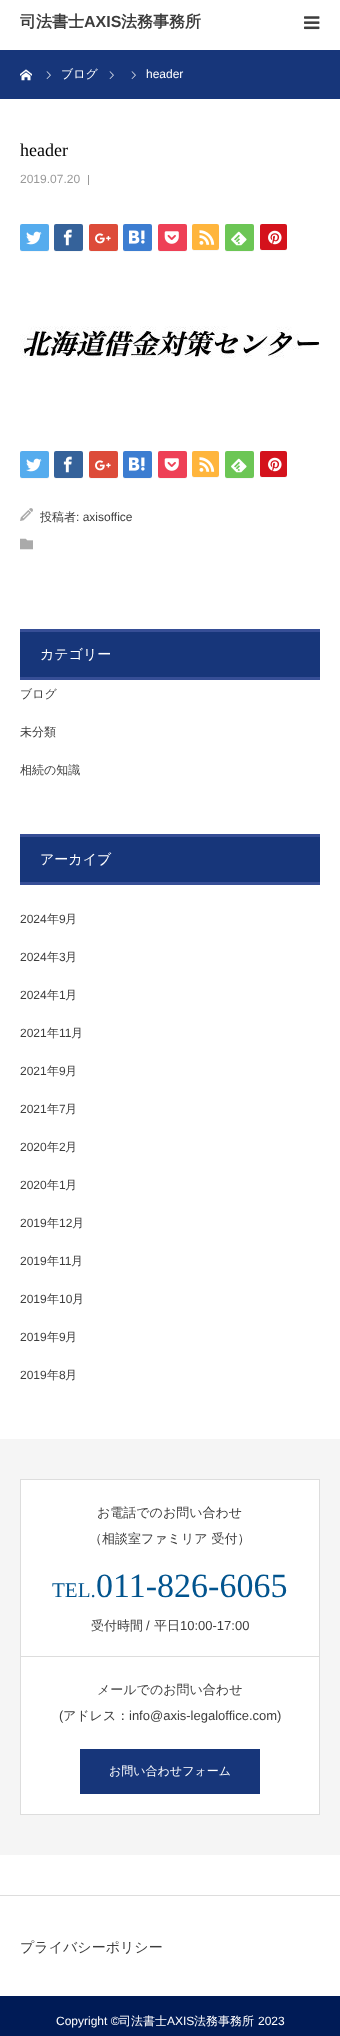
<?xml version="1.0" encoding="UTF-8"?>
<svg xmlns="http://www.w3.org/2000/svg" xmlns:xlink="http://www.w3.org/1999/xlink" width="340" height="2036">
  <rect width="100%" height="100%" fill="#ffffff" />
  <image x="304" y="16" width="16" height="14" xlink:href="image1.png" />
  <rect y="50" width="340" height="49" fill="#17367a" />
  <image x="20" y="69" width="12" height="12" xlink:href="image2.png" />
  <image x="46" y="71" width="5" height="8" xlink:href="image3.png" />
  <image x="109" y="71" width="5" height="8" xlink:href="image3.png" />
  <image x="131" y="71" width="5" height="8" xlink:href="image3.png" />
  <rect x="88" y="175" width="1" height="10" fill="#999999" />
  <path d="M 20 249 c 0 4 2.5 3 6 3 h 17 c 3.5 0 6 1 6 -3 c 0 1 -1 2 -2 2 h -25 c -1 0 -2 -1 -2 -2 z" fill="#f7f7f7" />
  <rect x="20" y="224" width="29" height="27" rx="2" fill="#55acee" />
  <image x="26" y="231" width="16" height="14" xlink:href="image4.png" />
  <path d="M 54 249 c 0 4 2.5 3 6 3 h 17 c 3.5 0 6 1 6 -3 c 0 1 -1 2 -2 2 h -25 c -1 0 -2 -1 -2 -2 z" fill="#f7f7f7" />
  <rect x="54" y="224" width="29" height="27" rx="2" fill="#35629a" />
  <image x="63" y="229" width="9" height="17" xlink:href="image5.png" />
  <path d="M 89 249 c 0 4 2.5 3 6 3 h 17 c 3.5 0 6 1 6 -3 c 0 1 -1 2 -2 2 h -25 c -1 0 -2 -1 -2 -2 z" fill="#f7f7f7" />
  <rect x="89" y="224" width="29" height="27" rx="2" fill="#dd4b39" />
  <image x="95" y="233" width="16" height="11" xlink:href="image6.png" />
  <path d="M 123 249 c 0 4 2.5 3 6 3 h 17 c 3.5 0 6 1 6 -3 c 0 1 -1 2 -2 2 h -25 c -1 0 -2 -1 -2 -2 z" fill="#f7f7f7" />
  <rect x="123" y="224" width="29" height="27" rx="2" fill="#3c7dd1" />
  <image x="129" y="230" width="16" height="14" xlink:href="image7.png" />
  <path d="M 158 249 c 0 4 2.5 3 6 3 h 17 c 3.5 0 6 1 6 -3 c 0 1 -1 2 -2 2 h -25 c -1 0 -2 -1 -2 -2 z" fill="#f7f7f7" />
  <rect x="158" y="224" width="29" height="27" rx="2" fill="#ee4056" />
  <image x="164" y="231" width="15" height="13" xlink:href="image8.png" />
  <path d="M 192 248 c 0 4 2.5 3 6 3 h 15 c 3.5 0 6 1 6 -3 c 0 1 -1 2 -2 2 h -23 c -1 0 -2 -1 -2 -2 z" fill="#f7f7f7" />
  <rect x="192" y="224" width="27" height="26" rx="2" fill="#ffb53c" />
  <image x="199" y="230" width="16" height="15" xlink:href="image9.png" />
  <path d="M 225 249 c 0 4 2.5 3 6 3 h 17 c 3.5 0 6 1 6 -3 c 0 1 -1 2 -2 2 h -25 c -1 0 -2 -1 -2 -2 z" fill="#f7f7f7" />
  <rect x="225" y="224" width="29" height="27" rx="2" fill="#6cc655" />
  <image x="231" y="231" width="16" height="15" xlink:href="image10.png" />
  <path d="M 260 248 c 0 4 2.5 3 6 3 h 15 c 3.5 0 6 1 6 -3 c 0 1 -1 2 -2 2 h -23 c -1 0 -2 -1 -2 -2 z" fill="#f7f7f7" />
  <rect x="260" y="224" width="27" height="26" rx="2" fill="#d4121c" />
  <image x="268" y="230" width="14" height="15" xlink:href="image11.png" />
  <image x="20" y="326" width="300" height="32" xlink:href="image12.png" />
  <path d="M 20 476 c 0 4 2.5 3 6 3 h 17 c 3.5 0 6 1 6 -3 c 0 1 -1 2 -2 2 h -25 c -1 0 -2 -1 -2 -2 z" fill="#f7f7f7" />
  <rect x="20" y="451" width="29" height="27" rx="2" fill="#55acee" />
  <image x="26" y="458" width="16" height="14" xlink:href="image4.png" />
  <path d="M 54 476 c 0 4 2.5 3 6 3 h 17 c 3.5 0 6 1 6 -3 c 0 1 -1 2 -2 2 h -25 c -1 0 -2 -1 -2 -2 z" fill="#f7f7f7" />
  <rect x="54" y="451" width="29" height="27" rx="2" fill="#35629a" />
  <image x="63" y="456" width="9" height="17" xlink:href="image5.png" />
  <path d="M 89 476 c 0 4 2.5 3 6 3 h 17 c 3.5 0 6 1 6 -3 c 0 1 -1 2 -2 2 h -25 c -1 0 -2 -1 -2 -2 z" fill="#f7f7f7" />
  <rect x="89" y="451" width="29" height="27" rx="2" fill="#dd4b39" />
  <image x="95" y="460" width="16" height="11" xlink:href="image6.png" />
  <path d="M 123 476 c 0 4 2.5 3 6 3 h 17 c 3.5 0 6 1 6 -3 c 0 1 -1 2 -2 2 h -25 c -1 0 -2 -1 -2 -2 z" fill="#f7f7f7" />
  <rect x="123" y="451" width="29" height="27" rx="2" fill="#3c7dd1" />
  <image x="129" y="457" width="16" height="14" xlink:href="image7.png" />
  <path d="M 158 476 c 0 4 2.5 3 6 3 h 17 c 3.5 0 6 1 6 -3 c 0 1 -1 2 -2 2 h -25 c -1 0 -2 -1 -2 -2 z" fill="#f7f7f7" />
  <rect x="158" y="451" width="29" height="27" rx="2" fill="#ee4056" />
  <image x="164" y="458" width="15" height="13" xlink:href="image8.png" />
  <path d="M 192 475 c 0 4 2.5 3 6 3 h 15 c 3.5 0 6 1 6 -3 c 0 1 -1 2 -2 2 h -23 c -1 0 -2 -1 -2 -2 z" fill="#f7f7f7" />
  <rect x="192" y="451" width="27" height="26" rx="2" fill="#ffb53c" />
  <image x="199" y="457" width="16" height="15" xlink:href="image9.png" />
  <path d="M 225 476 c 0 4 2.5 3 6 3 h 17 c 3.5 0 6 1 6 -3 c 0 1 -1 2 -2 2 h -25 c -1 0 -2 -1 -2 -2 z" fill="#f7f7f7" />
  <rect x="225" y="451" width="29" height="27" rx="2" fill="#6cc655" />
  <image x="231" y="458" width="16" height="15" xlink:href="image10.png" />
  <path d="M 260 475 c 0 4 2.5 3 6 3 h 15 c 3.5 0 6 1 6 -3 c 0 1 -1 2 -2 2 h -23 c -1 0 -2 -1 -2 -2 z" fill="#f7f7f7" />
  <rect x="260" y="451" width="27" height="26" rx="2" fill="#d4121c" />
  <image x="268" y="457" width="14" height="15" xlink:href="image11.png" />
  <image x="20" y="508" width="13" height="13" xlink:href="image13.png" />
  <image x="20" y="538" width="13" height="12" xlink:href="image14.png" />
  <rect x="20" y="632" width="300" height="45" fill="#17367a" />
  <rect x="20" y="629" width="300" height="3" fill="#364e96" />
  <rect x="20" y="677" width="300" height="3" fill="#364e96" />
  <rect x="20" y="837" width="300" height="45" fill="#17367a" />
  <rect x="20" y="834" width="300" height="3" fill="#364e96" />
  <rect x="20" y="882" width="300" height="3" fill="#364e96" />
  <rect y="1439" width="340" height="416" fill="#f5f5f5" />
  <rect x="20.5" y="1479.5" width="299" height="177" fill="#ffffff" stroke="#dddddd" />
  <rect x="21" y="1657" width="298" height="157" fill="#ffffff" />
  <rect x="319" y="1657" width="1" height="158" fill="#dddddd" />
  <rect x="20" y="1814" width="300" height="1" fill="#dddddd" />
  <rect x="20" y="1657" width="1" height="158" fill="#dddddd" />
  <rect x="80" y="1749" width="180" height="45" fill="#17367a" />
  <rect y="1895" width="340" height="1" fill="#dddddd" />
  <rect y="1996" width="340" height="40" fill="#001b56" />
  <text x="20" y="27" style="font-family: WenQuanYi Zen Hei; font-size: 16px; font-weight: bold; fill: #3d3d3d">司法書士</text>
  <text x="84" y="27" style="font-family: Liberation Sans; font-size: 16px; font-weight: bold; fill: #3d3d3d">AXIS</text>
  <text x="121" y="27" style="font-family: WenQuanYi Zen Hei; font-size: 16px; font-weight: bold; fill: #3d3d3d">法務事務所</text>
  <text x="61" y="78" style="font-family: WenQuanYi Zen Hei; font-size: 12px; font-weight: 500; fill: #ffffff">ブログ</text>
  <text x="146" y="78" style="font-family: Liberation Sans; font-size: 12px; fill: #ffffff">header</text>
  <text x="20" y="156" style="font-family: Liberation Serif; font-size: 18px; fill: #000000">header</text>
  <text x="20" y="183" style="font-family: Liberation Sans; font-size: 12px; fill: #999999">2019.07.20</text>
  <text x="40" y="521" style="font-family: WenQuanYi Zen Hei; font-size: 12px; font-weight: 500; fill: #3d3d3d">投稿者</text>
  <text x="76" y="521" style="font-family: Liberation Sans; font-size: 12px; fill: #3d3d3d">: axisoffice</text>
  <text x="40" y="659" style="font-family: WenQuanYi Zen Hei; font-size: 14px; font-weight: 500; fill: #ffffff">カテゴリー</text>
  <text x="20" y="698" style="font-family: WenQuanYi Zen Hei; font-size: 12px; font-weight: 500; fill: #3d3d3d">ブログ</text>
  <text x="20" y="736" style="font-family: WenQuanYi Zen Hei; font-size: 12px; font-weight: 500; fill: #3d3d3d">未分類</text>
  <text x="20" y="774" style="font-family: WenQuanYi Zen Hei; font-size: 12px; font-weight: 500; fill: #3d3d3d">相続の知識</text>
  <text x="40" y="864" style="font-family: WenQuanYi Zen Hei; font-size: 14px; font-weight: 500; fill: #ffffff">アーカイブ</text>
  <text x="20" y="923" style="font-family: Liberation Sans; font-size: 12px; fill: #3d3d3d">2024</text>
  <text x="47" y="923" style="font-family: WenQuanYi Zen Hei; font-size: 12px; font-weight: 500; fill: #3d3d3d">年</text>
  <text x="59" y="923" style="font-family: Liberation Sans; font-size: 12px; fill: #3d3d3d">9</text>
  <text x="65" y="923" style="font-family: WenQuanYi Zen Hei; font-size: 12px; font-weight: 500; fill: #3d3d3d">月</text>
  <text x="20" y="961" style="font-family: Liberation Sans; font-size: 12px; fill: #3d3d3d">2024</text>
  <text x="47" y="961" style="font-family: WenQuanYi Zen Hei; font-size: 12px; font-weight: 500; fill: #3d3d3d">年</text>
  <text x="59" y="961" style="font-family: Liberation Sans; font-size: 12px; fill: #3d3d3d">3</text>
  <text x="65" y="961" style="font-family: WenQuanYi Zen Hei; font-size: 12px; font-weight: 500; fill: #3d3d3d">月</text>
  <text x="20" y="999" style="font-family: Liberation Sans; font-size: 12px; fill: #3d3d3d">2024</text>
  <text x="47" y="999" style="font-family: WenQuanYi Zen Hei; font-size: 12px; font-weight: 500; fill: #3d3d3d">年</text>
  <text x="59" y="999" style="font-family: Liberation Sans; font-size: 12px; fill: #3d3d3d">1</text>
  <text x="65" y="999" style="font-family: WenQuanYi Zen Hei; font-size: 12px; font-weight: 500; fill: #3d3d3d">月</text>
  <text x="20" y="1037" style="font-family: Liberation Sans; font-size: 12px; fill: #3d3d3d">2021</text>
  <text x="47" y="1037" style="font-family: WenQuanYi Zen Hei; font-size: 12px; font-weight: 500; fill: #3d3d3d">年</text>
  <text x="59" y="1037" style="font-family: Liberation Sans; font-size: 12px; fill: #3d3d3d">11</text>
  <text x="71" y="1037" style="font-family: WenQuanYi Zen Hei; font-size: 12px; font-weight: 500; fill: #3d3d3d">月</text>
  <text x="20" y="1075" style="font-family: Liberation Sans; font-size: 12px; fill: #3d3d3d">2021</text>
  <text x="47" y="1075" style="font-family: WenQuanYi Zen Hei; font-size: 12px; font-weight: 500; fill: #3d3d3d">年</text>
  <text x="59" y="1075" style="font-family: Liberation Sans; font-size: 12px; fill: #3d3d3d">9</text>
  <text x="65" y="1075" style="font-family: WenQuanYi Zen Hei; font-size: 12px; font-weight: 500; fill: #3d3d3d">月</text>
  <text x="20" y="1113" style="font-family: Liberation Sans; font-size: 12px; fill: #3d3d3d">2021</text>
  <text x="47" y="1113" style="font-family: WenQuanYi Zen Hei; font-size: 12px; font-weight: 500; fill: #3d3d3d">年</text>
  <text x="59" y="1113" style="font-family: Liberation Sans; font-size: 12px; fill: #3d3d3d">7</text>
  <text x="65" y="1113" style="font-family: WenQuanYi Zen Hei; font-size: 12px; font-weight: 500; fill: #3d3d3d">月</text>
  <text x="20" y="1151" style="font-family: Liberation Sans; font-size: 12px; fill: #3d3d3d">2020</text>
  <text x="47" y="1151" style="font-family: WenQuanYi Zen Hei; font-size: 12px; font-weight: 500; fill: #3d3d3d">年</text>
  <text x="59" y="1151" style="font-family: Liberation Sans; font-size: 12px; fill: #3d3d3d">2</text>
  <text x="65" y="1151" style="font-family: WenQuanYi Zen Hei; font-size: 12px; font-weight: 500; fill: #3d3d3d">月</text>
  <text x="20" y="1189" style="font-family: Liberation Sans; font-size: 12px; fill: #3d3d3d">2020</text>
  <text x="47" y="1189" style="font-family: WenQuanYi Zen Hei; font-size: 12px; font-weight: 500; fill: #3d3d3d">年</text>
  <text x="59" y="1189" style="font-family: Liberation Sans; font-size: 12px; fill: #3d3d3d">1</text>
  <text x="65" y="1189" style="font-family: WenQuanYi Zen Hei; font-size: 12px; font-weight: 500; fill: #3d3d3d">月</text>
  <text x="20" y="1227" style="font-family: Liberation Sans; font-size: 12px; fill: #3d3d3d">2019</text>
  <text x="47" y="1227" style="font-family: WenQuanYi Zen Hei; font-size: 12px; font-weight: 500; fill: #3d3d3d">年</text>
  <text x="59" y="1227" style="font-family: Liberation Sans; font-size: 12px; fill: #3d3d3d">12</text>
  <text x="72" y="1227" style="font-family: WenQuanYi Zen Hei; font-size: 12px; font-weight: 500; fill: #3d3d3d">月</text>
  <text x="20" y="1265" style="font-family: Liberation Sans; font-size: 12px; fill: #3d3d3d">2019</text>
  <text x="47" y="1265" style="font-family: WenQuanYi Zen Hei; font-size: 12px; font-weight: 500; fill: #3d3d3d">年</text>
  <text x="59" y="1265" style="font-family: Liberation Sans; font-size: 12px; fill: #3d3d3d">11</text>
  <text x="71" y="1265" style="font-family: WenQuanYi Zen Hei; font-size: 12px; font-weight: 500; fill: #3d3d3d">月</text>
  <text x="20" y="1303" style="font-family: Liberation Sans; font-size: 12px; fill: #3d3d3d">2019</text>
  <text x="47" y="1303" style="font-family: WenQuanYi Zen Hei; font-size: 12px; font-weight: 500; fill: #3d3d3d">年</text>
  <text x="59" y="1303" style="font-family: Liberation Sans; font-size: 12px; fill: #3d3d3d">10</text>
  <text x="72" y="1303" style="font-family: WenQuanYi Zen Hei; font-size: 12px; font-weight: 500; fill: #3d3d3d">月</text>
  <text x="20" y="1341" style="font-family: Liberation Sans; font-size: 12px; fill: #3d3d3d">2019</text>
  <text x="47" y="1341" style="font-family: WenQuanYi Zen Hei; font-size: 12px; font-weight: 500; fill: #3d3d3d">年</text>
  <text x="59" y="1341" style="font-family: Liberation Sans; font-size: 12px; fill: #3d3d3d">9</text>
  <text x="65" y="1341" style="font-family: WenQuanYi Zen Hei; font-size: 12px; font-weight: 500; fill: #3d3d3d">月</text>
  <text x="20" y="1379" style="font-family: Liberation Sans; font-size: 12px; fill: #3d3d3d">2019</text>
  <text x="47" y="1379" style="font-family: WenQuanYi Zen Hei; font-size: 12px; font-weight: 500; fill: #3d3d3d">年</text>
  <text x="59" y="1379" style="font-family: Liberation Sans; font-size: 12px; fill: #3d3d3d">8</text>
  <text x="65" y="1379" style="font-family: WenQuanYi Zen Hei; font-size: 12px; font-weight: 500; fill: #3d3d3d">月</text>
  <text x="97" y="1517" style="font-family: WenQuanYi Zen Hei; font-size: 13px; font-weight: 500; fill: #3d3d3d">お電話でのお問い合わせ</text>
  <text x="89" y="1543" style="font-family: WenQuanYi Zen Hei; font-size: 13px; font-weight: 500; fill: #3d3d3d">（相談室ファミリア 受付）</text>
  <text x="52" y="1597" style="font-family: Liberation Serif; font-size: 21px; fill: #02548e">TEL.</text>
  <text x="96" y="1597" style="font-family: Liberation Serif; font-size: 34px; fill: #02548e">011-826-6065</text>
  <text x="91" y="1630" style="font-family: WenQuanYi Zen Hei; font-size: 13px; font-weight: 500; fill: #3d3d3d">受付時間</text>
  <text x="146" y="1630" style="font-family: Liberation Sans; font-size: 13px; fill: #3d3d3d">/</text>
  <text x="154" y="1630" style="font-family: WenQuanYi Zen Hei; font-size: 13px; font-weight: 500; fill: #3d3d3d">平日</text>
  <text x="180" y="1630" style="font-family: Liberation Sans; font-size: 13px; fill: #3d3d3d">10:00-17:00</text>
  <text x="97" y="1694" style="font-family: WenQuanYi Zen Hei; font-size: 13px; font-weight: 500; fill: #3d3d3d">メールでのお問い合わせ</text>
  <text x="59" y="1720" style="font-family: Liberation Sans; font-size: 13px; fill: #3d3d3d">(</text>
  <text x="63" y="1720" style="font-family: WenQuanYi Zen Hei; font-size: 13px; font-weight: 500; fill: #3d3d3d">アドレス：</text>
  <text x="129" y="1720" style="font-family: Liberation Sans; font-size: 13px; fill: #3d3d3d">info@axis-legaloffice.com)</text>
  <text x="109" y="1775" style="font-family: WenQuanYi Zen Hei; font-size: 12px; font-weight: 500; fill: #ffffff">お問い合わせフォーム</text>
  <text x="20" y="1952" style="font-family: WenQuanYi Zen Hei; font-size: 14px; font-weight: 500; fill: #3d3d3d">プライバシーポリシー</text>
  <text x="56" y="2025" style="font-family: Liberation Sans; font-size: 12px; fill: #ffffff">Copyright ©</text>
  <text x="119" y="2025" style="font-family: WenQuanYi Zen Hei; font-size: 12px; font-weight: 500; fill: #ffffff">司法書士</text>
  <text x="167" y="2025" style="font-family: Liberation Sans; font-size: 12px; fill: #ffffff">AXIS</text>
  <text x="194" y="2025" style="font-family: WenQuanYi Zen Hei; font-size: 12px; font-weight: 500; fill: #ffffff">法務事務所</text>
  <text x="258" y="2025" style="font-family: Liberation Sans; font-size: 12px; fill: #ffffff">2023</text>
</svg>
